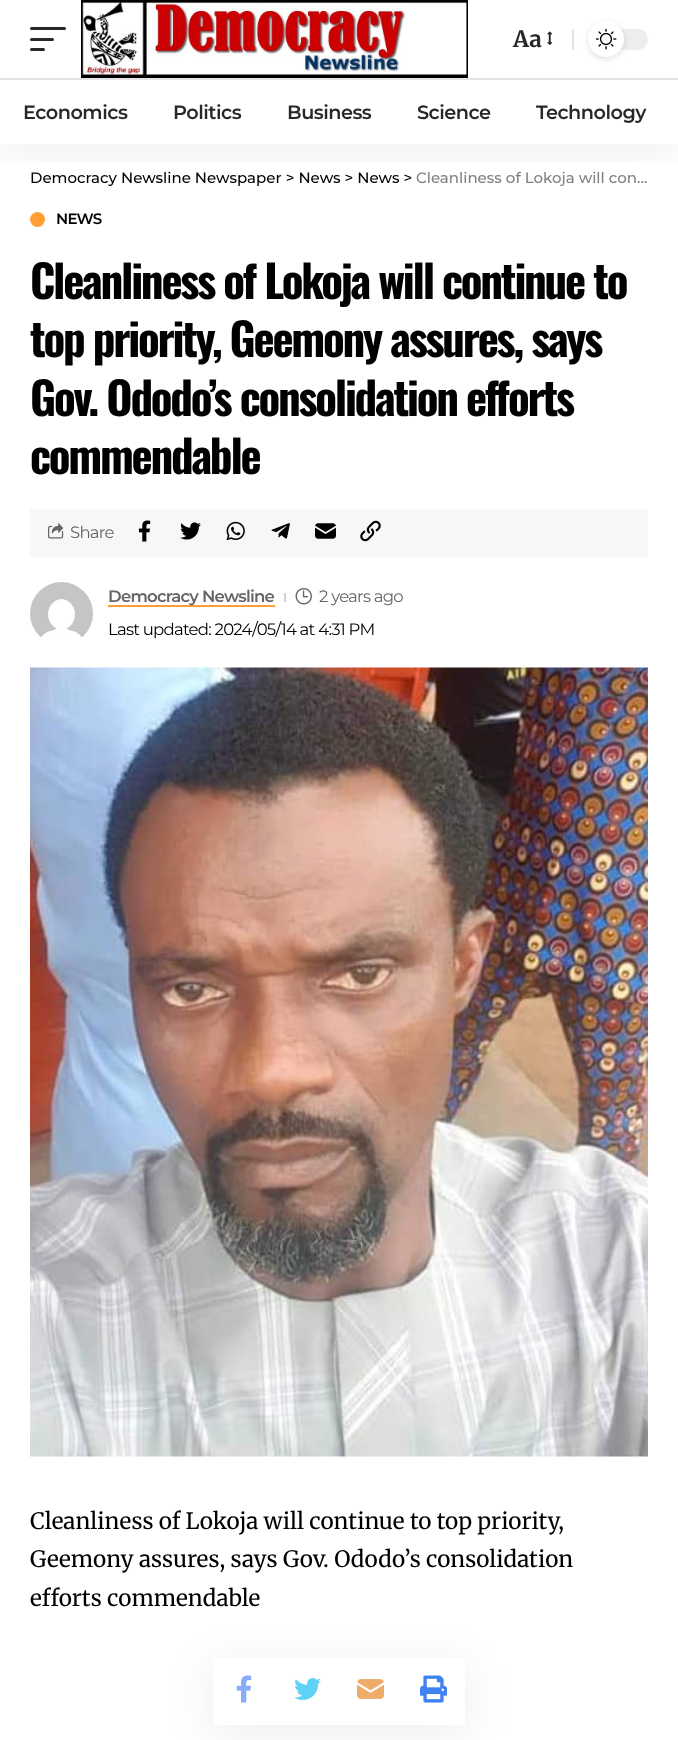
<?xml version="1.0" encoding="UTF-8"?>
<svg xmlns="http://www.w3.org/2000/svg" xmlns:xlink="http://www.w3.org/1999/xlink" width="678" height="1740">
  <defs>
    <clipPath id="clip1"><rect x="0" y="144" width="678" height="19" /></clipPath>
    <clipPath id="clip2"><path d="M 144 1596 h 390 v 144 h -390 z m 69 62 h 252 v 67 h -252 z" clip-rule="evenodd" /></clipPath>
  </defs>
  <rect width="100%" height="100%" fill="#ffffff" />
  <circle cx="37.5" cy="219.5" r="7.5" fill="#ff9f31" />
  <g clip-path="url(#clip1)">
    <rect y="6" width="678" height="144" fill="#000000" fill-opacity="0.07" filter="blur(22.5px)" />
  </g>
  <rect x="30" y="27" width="36" height="3" rx="1.5" fill="#282828" />
  <rect x="30" y="38" width="24" height="3" rx="1.5" fill="#282828" />
  <rect x="30" y="48" width="15" height="3" rx="1.5" fill="#282828" />
  <image x="81" y="0" width="387" height="78" xlink:href="image1.png" />
  <image x="547" y="31" width="6" height="14" xlink:href="image2.png" />
  <rect x="572" y="29" width="2" height="21" fill="#e4e4e4" />
  <rect x="588" y="29" width="60" height="21" rx="10.5" fill="#ededed" />
  <rect x="588" y="23" width="36" height="36" rx="18" fill="#000000" fill-opacity="0.12" filter="blur(3px)" />
  <circle cx="606" cy="39" r="18" fill="#ffffff" />
  <image x="596" y="29" width="21" height="21" xlink:href="image3.png" />
  <rect y="78" width="678" height="2" fill="#e4e4e4" />
  <rect x="30" y="509" width="618" height="48" fill="#f7f7f7" />
  <image x="48" y="523" width="16" height="16" xlink:href="image4.png" />
  <image x="138" y="520" width="13" height="22" xlink:href="image5.png" />
  <image x="180" y="522" width="21" height="18" xlink:href="image6.png" />
  <image x="226" y="521" width="19" height="20" xlink:href="image7.png" />
  <image x="271" y="523" width="19" height="16" xlink:href="image8.png" />
  <image x="315" y="523" width="21" height="16" xlink:href="image9.png" />
  <image x="360" y="520" width="21" height="22" xlink:href="image10.png" />
  <image x="30" y="582" width="63" height="56" xlink:href="image11.png" />
  <rect x="108" y="605" width="167" height="2" fill="#ff9f31" />
  <rect x="284" y="593" width="2" height="9" fill="#d1d1d1" />
  <image x="295" y="588" width="17" height="17" xlink:href="image12.png" />
  <image x="30" y="667" width="618" height="790" xlink:href="image13.png" />
  <g clip-path="url(#clip2)">
    <rect x="213" y="1665" width="252" height="68" fill="#000000" fill-opacity="0.07" filter="blur(22.5px)" />
  </g>
  <image x="236" y="1675" width="16" height="28" xlink:href="image14.png" />
  <image x="294" y="1678" width="27" height="22" xlink:href="image15.png" />
  <image x="357" y="1679" width="27" height="20" xlink:href="image16.png" />
  <image x="420" y="1675" width="27" height="28" xlink:href="image17.png" />
  <text x="513" y="47" style="font-family: Merriweather; font-size: 22.5px; font-weight: bold; fill: #282828">Aa</text>
  <text x="23" y="119" style="font-family: Montserrat; font-size: 19.25px; font-weight: 600; letter-spacing: -0.5px; fill: #282828">Economics</text>
  <text x="173" y="119" style="font-family: Montserrat; font-size: 19.25px; font-weight: 600; letter-spacing: -0.5px; fill: #282828">Politics</text>
  <text x="287" y="119" style="font-family: Montserrat; font-size: 19.25px; font-weight: 600; letter-spacing: -0.5px; fill: #282828">Business</text>
  <text x="417" y="119" style="font-family: Montserrat; font-size: 19.25px; font-weight: 600; letter-spacing: -0.5px; fill: #282828">Science</text>
  <text x="536" y="119" style="font-family: Montserrat; font-size: 19.25px; font-weight: 600; letter-spacing: -0.5px; fill: #282828">Technology</text>
  <text x="30" y="183" style="font-family: Montserrat; font-size: 15px; font-weight: 500; fill: #000000">Democracy Newsline Newspaper &gt; News &gt; News &gt;</text>
  <text x="416" y="183" style="font-family: Montserrat; font-size: 15px; font-weight: 500; fill: #808080">Cleanliness of Lokoja will con…</text>
  <text x="56" y="224" style="font-family: Montserrat; font-size: 15px; font-weight: 600; letter-spacing: -0.75px; fill: #000000">NEWS</text>
  <text x="30" y="299" style="font-family: Oswald; font-size: 45px; font-weight: bold; letter-spacing: -2.25px; fill: #000000">Cleanliness of Lokoja will continue to</text>
  <text x="30" y="357" style="font-family: Oswald; font-size: 45px; font-weight: bold; letter-spacing: -2.25px; fill: #000000">top priority, Geemony assures, says</text>
  <text x="30" y="416" style="font-family: Oswald; font-size: 45px; font-weight: bold; letter-spacing: -2.25px; fill: #000000">Gov. Ododo’s consolidation efforts</text>
  <text x="30" y="474" style="font-family: Oswald; font-size: 45px; font-weight: bold; letter-spacing: -2.25px; fill: #000000">commendable</text>
  <text x="70" y="538" style="font-family: Montserrat; font-size: 16.5px; letter-spacing: -0.75px; fill: #666666">Share</text>
  <text x="108" y="602" style="font-family: Montserrat; font-size: 16.5px; font-weight: 600; letter-spacing: -0.75px; fill: #666666">Democracy Newsline</text>
  <text x="319" y="602" style="font-family: Montserrat; font-size: 16.5px; letter-spacing: -0.75px; fill: #666666">2 years ago</text>
  <text x="108" y="635" style="font-family: Montserrat; font-size: 16.5px; letter-spacing: -0.75px; fill: #000000">Last updated: 2024/05/14 at 4:31 PM</text>
  <text x="30" y="1529" style="font-family: Merriweather; font-size: 22.5px; fill: #000000">Cleanliness of Lokoja will continue to top priority,</text>
  <text x="30" y="1567" style="font-family: Merriweather; font-size: 22.5px; fill: #000000">Geemony assures, says Gov. Ododo’s consolidation</text>
  <text x="30" y="1606" style="font-family: Merriweather; font-size: 22.5px; fill: #000000">efforts commendable</text>
</svg>
